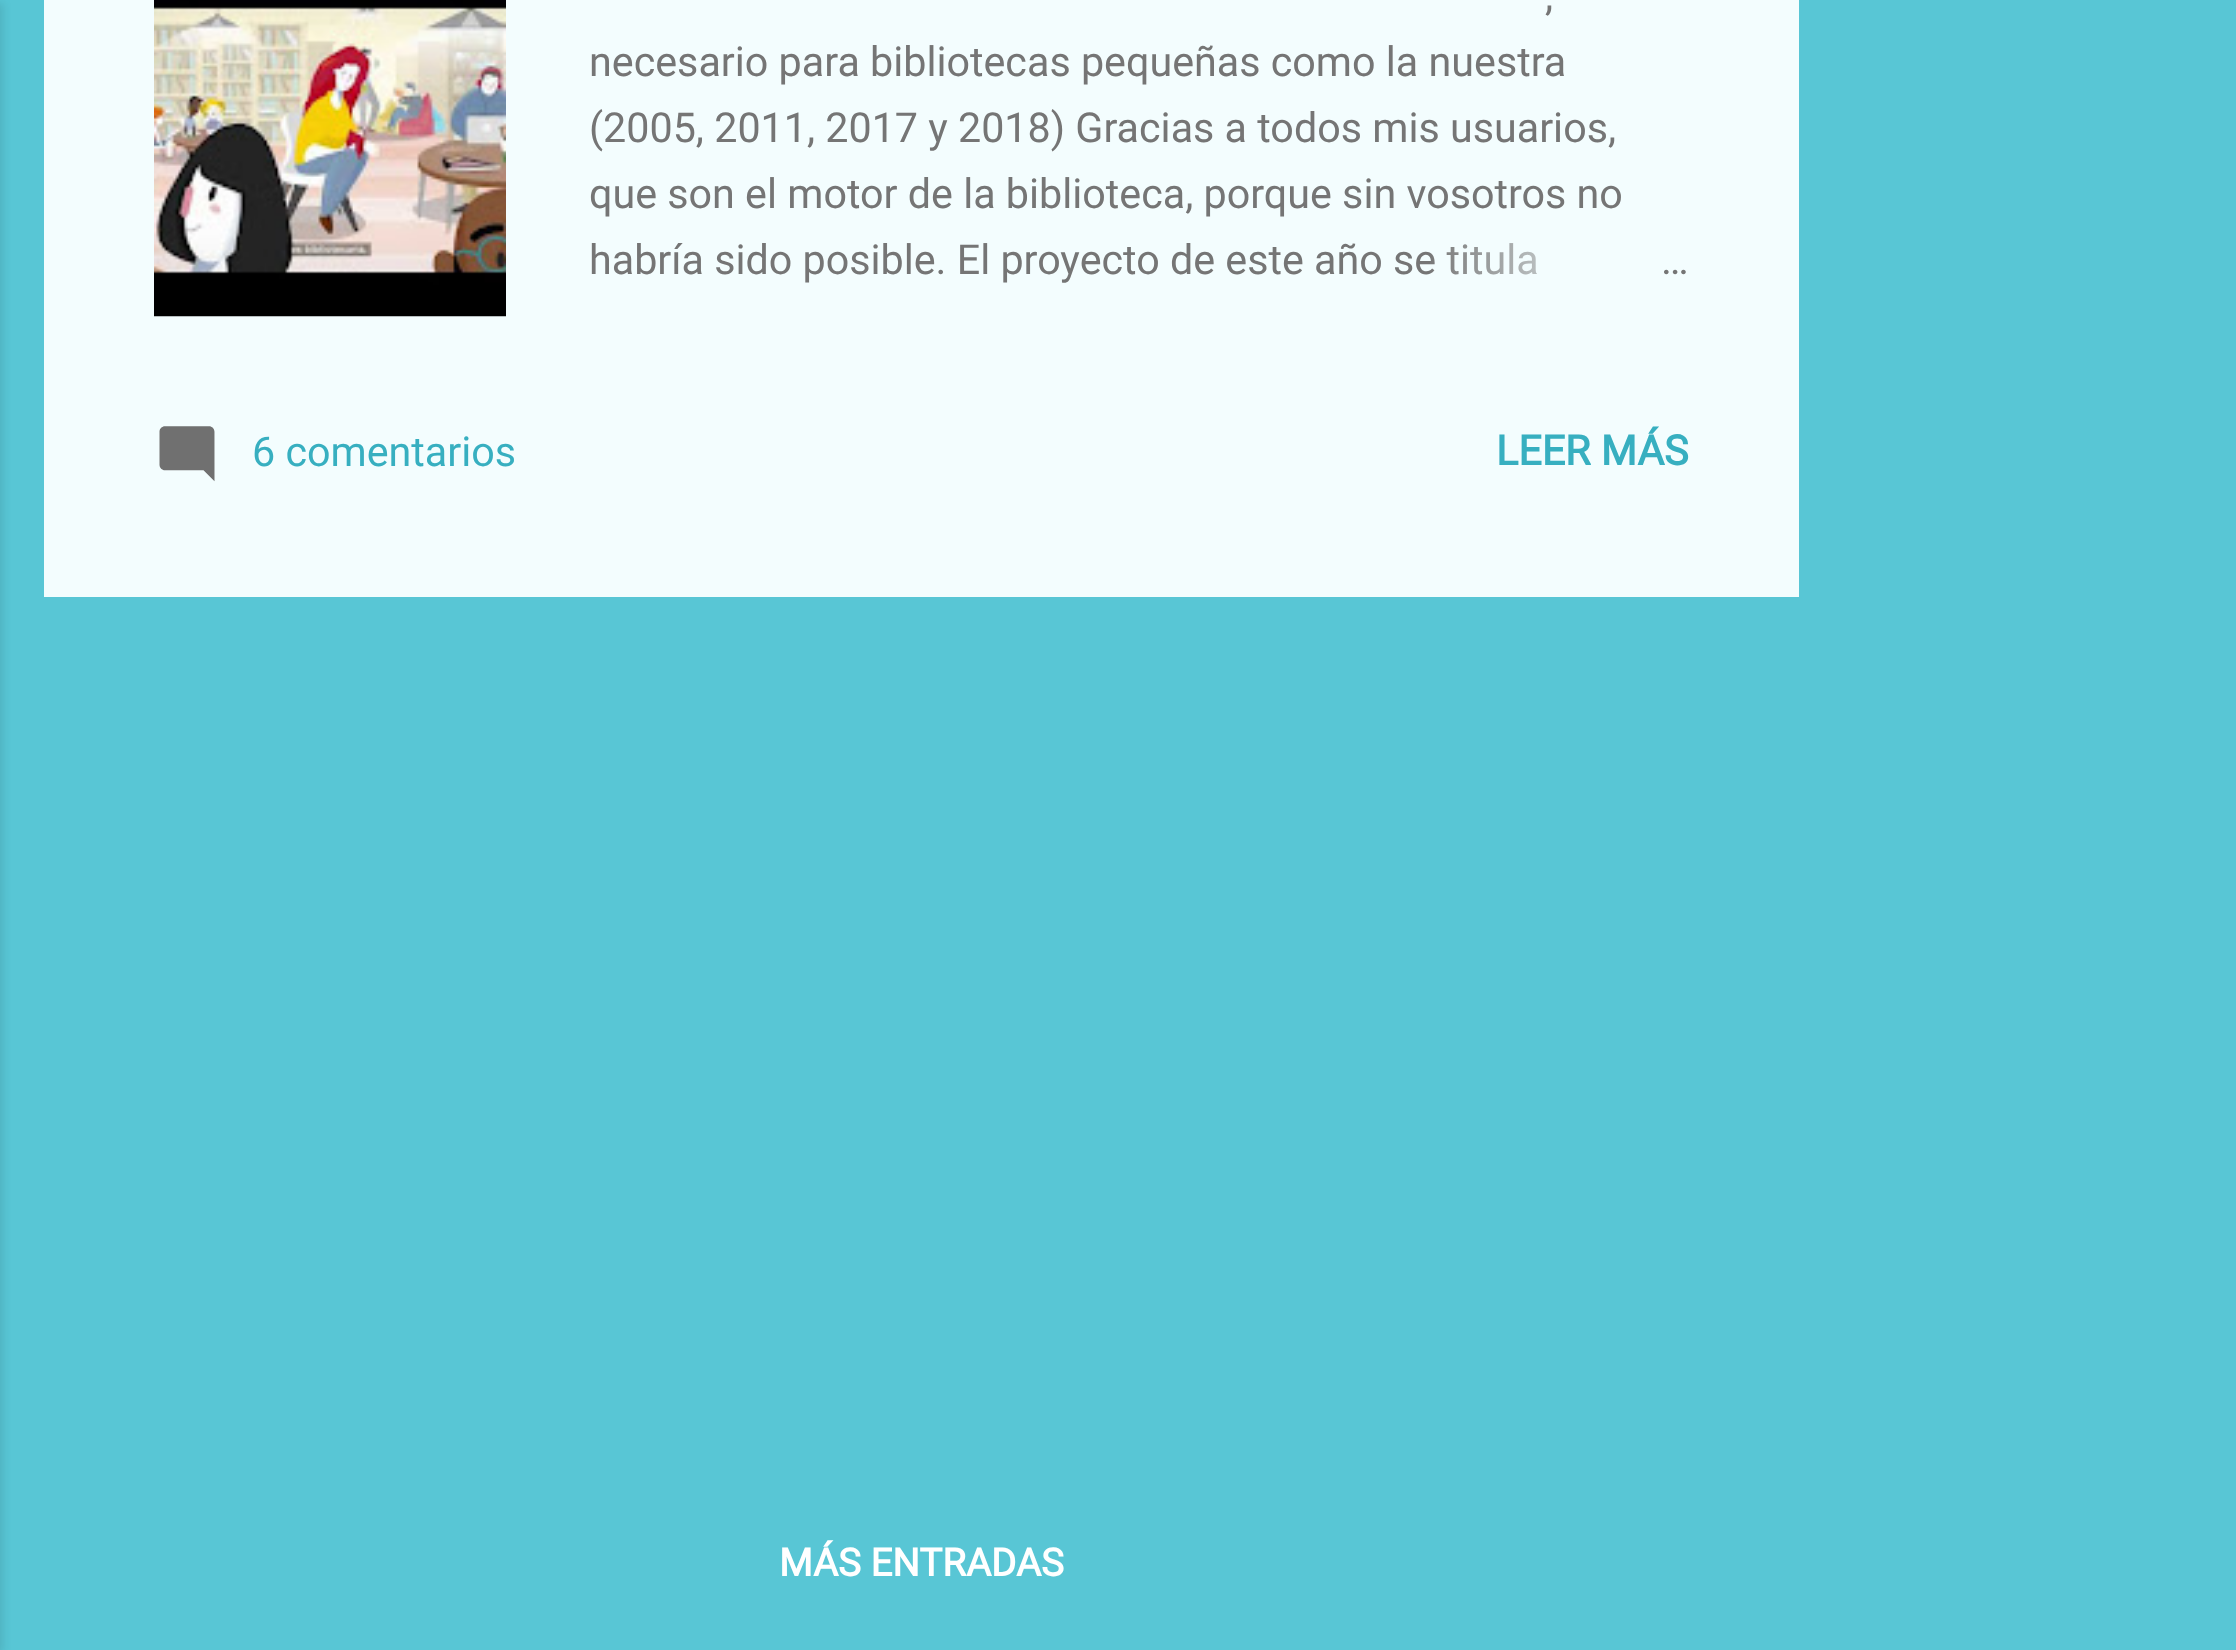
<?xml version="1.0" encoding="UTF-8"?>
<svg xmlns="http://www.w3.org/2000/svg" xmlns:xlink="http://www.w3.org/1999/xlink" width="2236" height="1650">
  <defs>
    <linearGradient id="g1" gradientUnits="userSpaceOnUse" x1="1689" y1="261" x2="1425" y2="261"><stop offset="0" stop-color="#f3fdfe" /><stop offset="0.2" stop-color="#f3fdfe" /><stop offset="1" stop-color="#f3fdfe" stop-opacity="0" /></linearGradient>
  </defs>
  <rect width="100%" height="100%" fill="#58c6d5" />
  <rect x="-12" y="3" width="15" height="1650" fill="#000000" fill-opacity="0.1" filter="blur(4px)" />
  <rect x="44" width="1755" height="597" fill="#f3fdfe" />
  <image x="154" y="0" width="352" height="317" xlink:href="image1.png" />
  <image x="159" y="426" width="56" height="56" xlink:href="image2.png" />
  <text x="1545" y="10" style="font-family: Roboto; font-size: 41.25px; fill: #757575">,</text>
  <text x="589" y="76" style="font-family: Roboto; font-size: 41.25px; fill: #757575">necesario para bibliotecas pequeñas como la nuestra</text>
  <text x="589" y="142" style="font-family: Roboto; font-size: 41.25px; fill: #757575">(2005, 2011, 2017 y 2018) Gracias a todos mis usuarios,</text>
  <text x="589" y="208" style="font-family: Roboto; font-size: 41.25px; fill: #757575">que son el motor de la biblioteca, porque sin vosotros no</text>
  <text x="589" y="274" style="font-family: Roboto; font-size: 41.25px; fill: #757575">habría sido posible. El proyecto de este año se titula</text>
  <rect x="1430" y="243" width="106" height="32" fill="url(#g1)" />
  <text x="1661" y="274" style="font-family: Roboto; font-size: 41.25px; fill: #757575">…</text>
  <text x="252" y="466" style="font-family: Roboto; font-size: 41.25px; fill: #37afc0">6 comentarios</text>
  <text x="1496" y="465" style="font-family: Roboto; font-size: 41.25px; font-weight: bold; fill: #37afc0">LEER MÁS</text>
  <text x="779" y="1576" style="font-family: Roboto; font-size: 38.5px; font-weight: bold; fill: #ffffff">MÁS ENTRADAS</text>
</svg>
